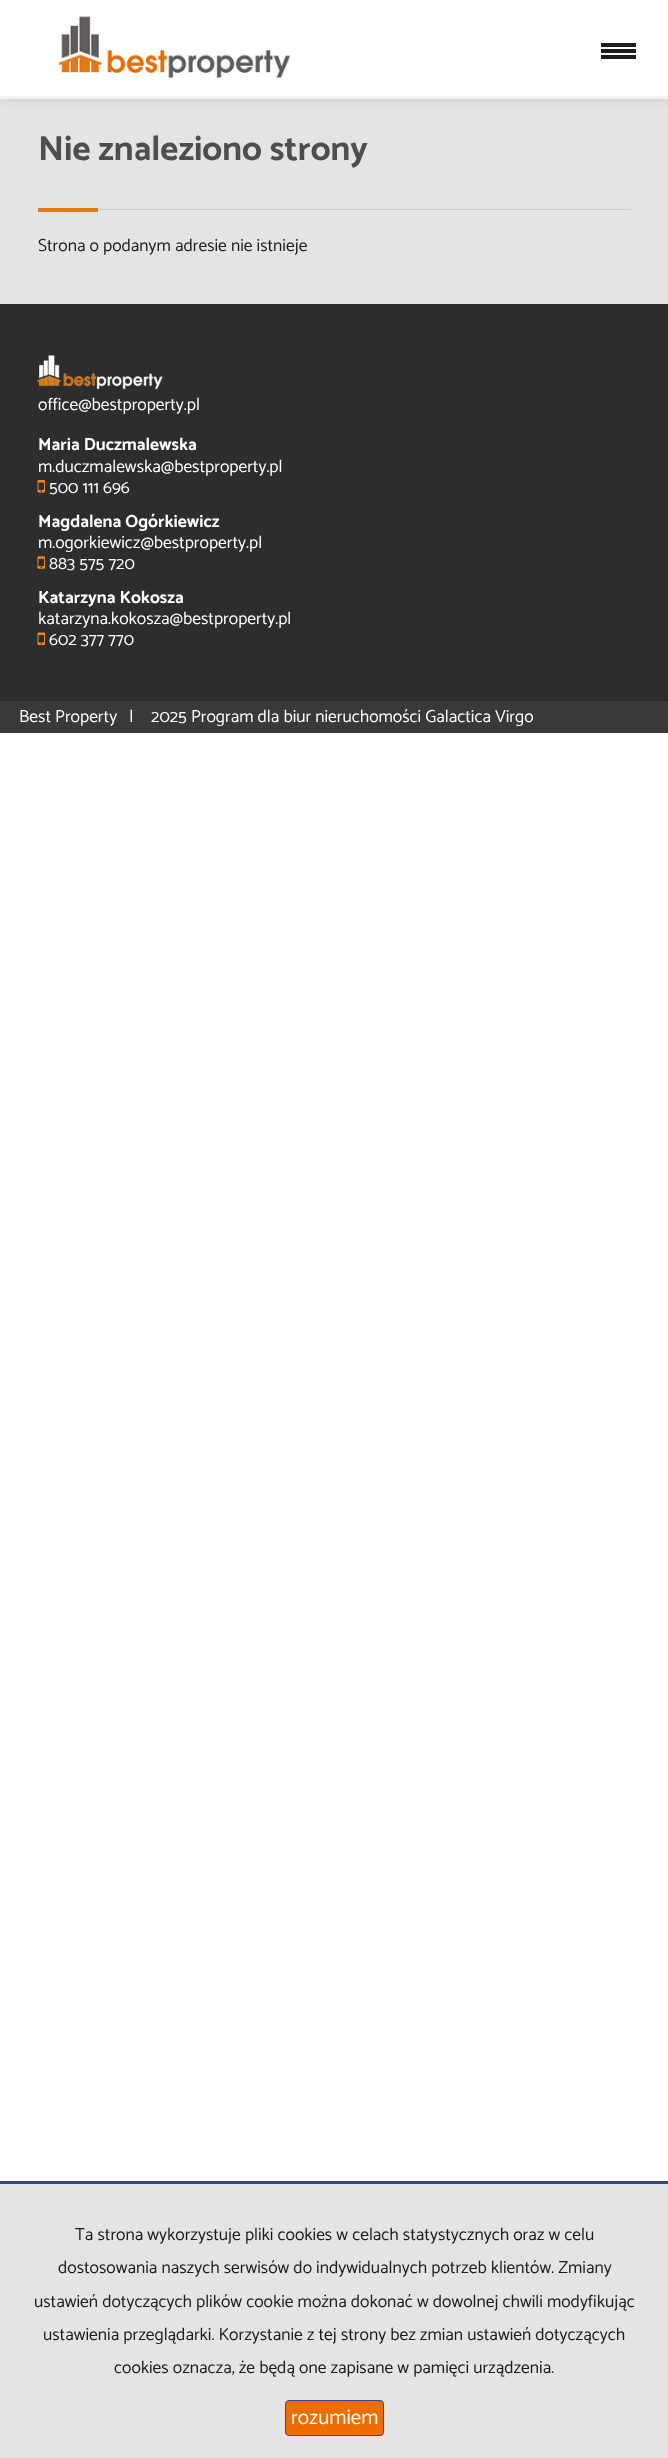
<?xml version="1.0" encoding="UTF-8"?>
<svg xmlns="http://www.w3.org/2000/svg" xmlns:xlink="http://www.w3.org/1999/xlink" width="668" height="2458">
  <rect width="100%" height="100%" fill="#ffffff" />
  <rect y="99" width="668" height="205" fill="#e4e4e4" />
  <rect width="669" height="99" fill="#000000" fill-opacity="0.1" filter="blur(6px)" />
  <rect width="668" height="96" fill="#ffffff" />
  <rect y="96" width="668" height="3" fill="#f2f2f2" />
  <image x="58" y="16" width="233" height="63" xlink:href="image1.png" />
  <rect x="601" y="43" width="35" height="4" fill="#1e1b1b" />
  <rect x="601" y="49" width="35" height="4" fill="#1e1b1b" />
  <rect x="601" y="55" width="35" height="4" fill="#1e1b1b" />
  <rect x="98" y="209" width="533" height="1" fill="#cdcdcd" />
  <rect x="38" y="208" width="60" height="4" fill="#e77818" />
  <rect y="304" width="668" height="397" fill="#2d2d2d" />
  <image x="37" y="355" width="126" height="35" xlink:href="image2.png" />
  <image x="37" y="480" width="8" height="13" xlink:href="image3.png" />
  <image x="37" y="556" width="8" height="13" xlink:href="image4.png" />
  <image x="37" y="632" width="8" height="13" xlink:href="image5.png" />
  <rect y="701" width="668" height="32" fill="#393939" />
  <rect y="2184" width="668" height="274" fill="#e4e4e4" />
  <rect y="2181" width="668" height="3" fill="#324685" />
  <rect x="285.5" y="2400.5" width="98" height="35" rx="3.5" fill="#ed6d00" stroke="#334787" />
  <text x="38" y="160" style="font-family: Catamaran; font-size: 35px; font-weight: bold; fill: #4e4e4e">Nie znaleziono strony</text>
  <text x="38" y="251" style="font-family: Catamaran; font-size: 17.5px; fill: #1e1b1b">Strona o podanym adresie nie istnieje</text>
  <text x="38" y="410" style="font-family: Catamaran; font-size: 17.5px; fill: #ffffff">office@bestproperty.pl</text>
  <text x="38" y="450" style="font-family: Catamaran; font-size: 17.5px; font-weight: bold; fill: #ffffff">Maria Duczmalewska</text>
  <text x="38" y="472" style="font-family: Catamaran; font-size: 17.5px; fill: #ffffff">m.duczmalewska@bestproperty.pl</text>
  <text x="49" y="493" style="font-family: Catamaran; font-size: 17.5px; fill: #ffffff">500 111 696</text>
  <text x="38" y="527" style="font-family: Catamaran; font-size: 17.5px; font-weight: bold; fill: #ffffff">Magdalena Ogórkiewicz</text>
  <text x="38" y="548" style="font-family: Catamaran; font-size: 17.5px; fill: #ffffff">m.ogorkiewicz@bestproperty.pl</text>
  <text x="49" y="569" style="font-family: Catamaran; font-size: 17.5px; fill: #ffffff">883 575 720</text>
  <text x="38" y="603" style="font-family: Catamaran; font-size: 17.5px; font-weight: bold; fill: #ffffff">Katarzyna Kokosza</text>
  <text x="38" y="624" style="font-family: Catamaran; font-size: 17.5px; fill: #ffffff">katarzyna.kokosza@bestproperty.pl</text>
  <text x="49" y="645" style="font-family: Catamaran; font-size: 17.5px; fill: #ffffff">602 377 770</text>
  <text x="19" y="722" style="font-family: Catamaran; font-size: 17.5px; fill: #ffffff">Best Property</text>
  <text x="129" y="722" style="font-family: Catamaran; font-size: 17.5px; fill: #ffffff">|</text>
  <text x="151" y="722" style="font-family: Catamaran; font-size: 17.5px; fill: #ffffff">2025 Program dla biur nieruchomości Galactica Virgo</text>
  <text x="75" y="2240" style="font-family: Catamaran; font-size: 17.5px; fill: #1e1b1b">Ta strona wykorzystuje pliki cookies w celach statystycznych oraz w celu</text>
  <text x="58" y="2273" style="font-family: Catamaran; font-size: 17.5px; fill: #1e1b1b">dostosowania naszych serwisów do indywidualnych potrzeb klientów. Zmiany</text>
  <text x="34" y="2307" style="font-family: Catamaran; font-size: 17.5px; fill: #1e1b1b">ustawień dotyczących plików cookie można dokonać w dowolnej chwili modyfikując</text>
  <text x="43" y="2340" style="font-family: Catamaran; font-size: 17.5px; fill: #1e1b1b">ustawienia przeglądarki. Korzystanie z tej strony bez zmian ustawień dotyczących</text>
  <text x="114" y="2373" style="font-family: Catamaran; font-size: 17.5px; fill: #1e1b1b">cookies oznacza, że będą one zapisane w pamięci urządzenia.</text>
  <text x="291" y="2424" style="font-family: Catamaran; font-size: 21px; fill: #ffffff">rozumiem</text>
</svg>
